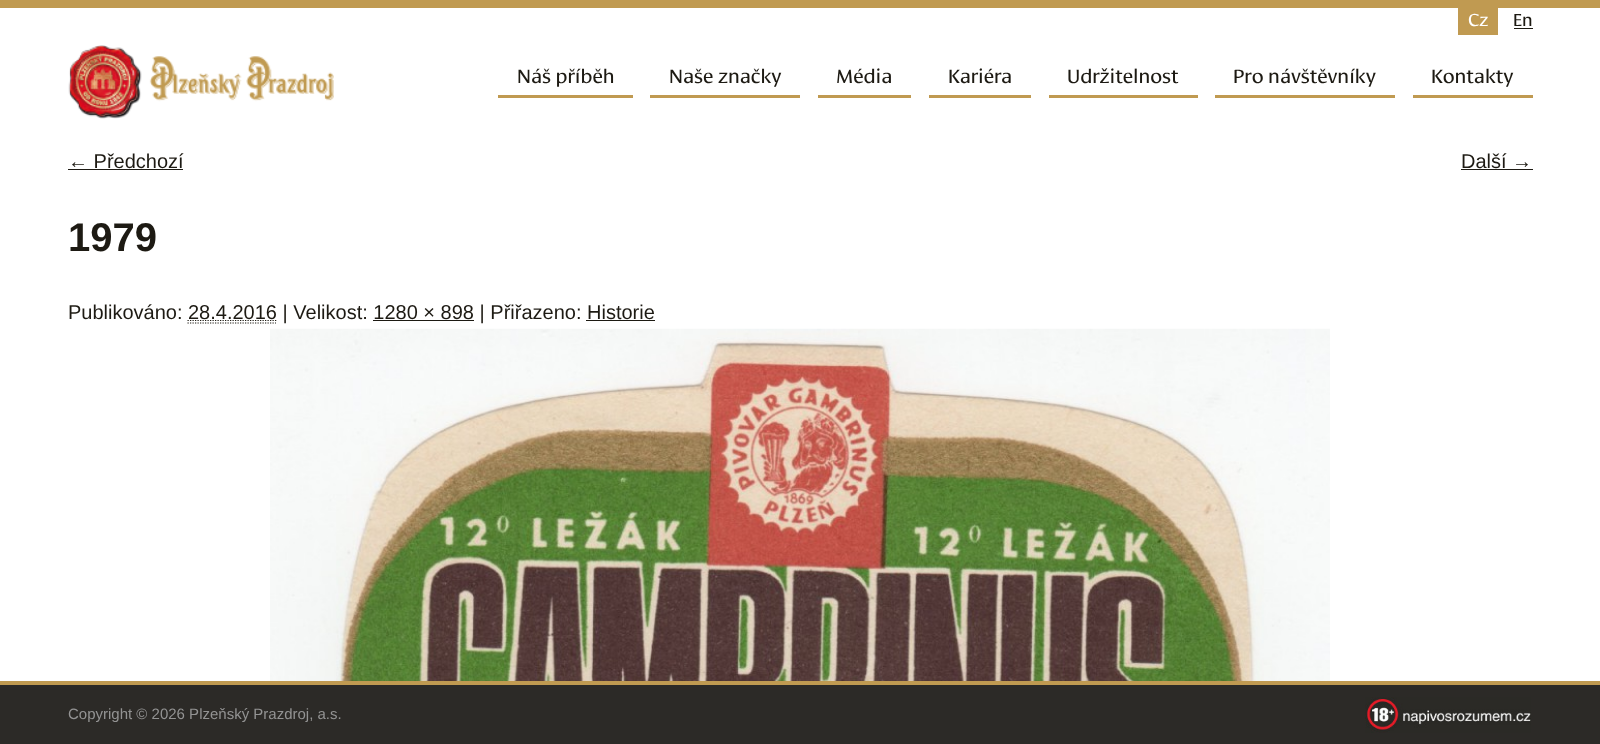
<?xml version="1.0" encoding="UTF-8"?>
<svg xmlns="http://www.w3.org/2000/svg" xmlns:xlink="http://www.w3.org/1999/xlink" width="1600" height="744">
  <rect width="100%" height="100%" fill="#ffffff" />
  <rect width="1600" height="8" fill="#c09a51" />
  <rect x="1458" y="8" width="40" height="27" fill="#c09a51" />
  <rect x="1514" y="28" width="19" height="1" fill="#1d1a13" />
  <image x="68" y="45" width="266" height="74" xlink:href="image1.png" />
  <rect x="498" y="95" width="135" height="3" fill="#c09a51" />
  <rect x="650" y="95" width="150" height="3" fill="#c09a51" />
  <rect x="818" y="95" width="93" height="3" fill="#c09a51" />
  <rect x="929" y="95" width="102" height="3" fill="#c09a51" />
  <rect x="1049" y="95" width="149" height="3" fill="#c09a51" />
  <rect x="1215" y="95" width="180" height="3" fill="#c09a51" />
  <rect x="1413" y="95" width="120" height="3" fill="#c09a51" />
  <rect x="68" y="169" width="115" height="1" fill="#1d1a13" />
  <rect x="1461" y="169" width="72" height="1" fill="#1d1a13" />
  <path d="M 187.5 323 h 88.5" fill="none" stroke="#1d1a13" stroke-width="1.2" stroke-dasharray="1.25 1.25" />
  <path d="M 187.5 320.5 h 89" fill="none" stroke="#1d1a13" stroke-width="1.2" stroke-dasharray="1.25 1.25" />
  <rect x="373" y="320" width="101" height="1" fill="#1d1a13" />
  <rect x="586" y="320" width="69" height="1" fill="#1d1a13" />
  <image x="270" y="328" width="1060" height="353" xlink:href="image2.png" />
  <rect y="685" width="1600" height="59" fill="#2c2a27" />
  <rect y="681" width="1600" height="4" fill="#c09a51" />
  <image x="1365" y="697" width="166" height="36" xlink:href="image3.png" />
  <text x="1468" y="26" style="font-family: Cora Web; font-size: 18px; fill: #ffffff">Cz</text>
  <text x="1513" y="26" style="font-family: Cora Web; font-size: 18px; fill: #1d1a13">En</text>
  <text x="517" y="83" style="font-family: Cora Web; font-size: 20px; fill: #1d1a13">Náš příběh</text>
  <text x="669" y="83" style="font-family: Cora Web; font-size: 20px; fill: #1d1a13">Naše značky</text>
  <text x="836" y="83" style="font-family: Cora Web; font-size: 20px; fill: #1d1a13">Média</text>
  <text x="948" y="83" style="font-family: Cora Web; font-size: 20px; fill: #1d1a13">Kariéra</text>
  <text x="1067" y="83" style="font-family: Cora Web; font-size: 20px; fill: #1d1a13">Udržitelnost</text>
  <text x="1233" y="83" style="font-family: Cora Web; font-size: 20px; fill: #1d1a13">Pro návštěvníky</text>
  <text x="1431" y="83" style="font-family: Cora Web; font-size: 20px; fill: #1d1a13">Kontakty</text>
  <text x="68" y="168" style="font-family: Liberation Sans; font-size: 20px; fill: #1d1a13">← Předchozí</text>
  <text x="1461" y="168" style="font-family: Liberation Sans; font-size: 20px; fill: #1d1a13">Další →</text>
  <text x="68" y="251" style="font-family: Liberation Sans; font-size: 40px; font-weight: bold; fill: #1d1a13">1979</text>
  <text x="68" y="319" style="font-family: Liberation Sans; font-size: 20px; fill: #1d1a13">Publikováno:</text>
  <text x="188" y="319" style="font-family: Liberation Sans; font-size: 20px; fill: #1d1a13">28.4.2016 | Velikost: 1280 × 898 | Přiřazeno: Historie</text>
  <text x="68" y="719" style="font-family: Liberation Sans; font-size: 15px; fill: #939393">Copyright © 2026 Plzeňský Prazdroj, a.s.</text>
</svg>
